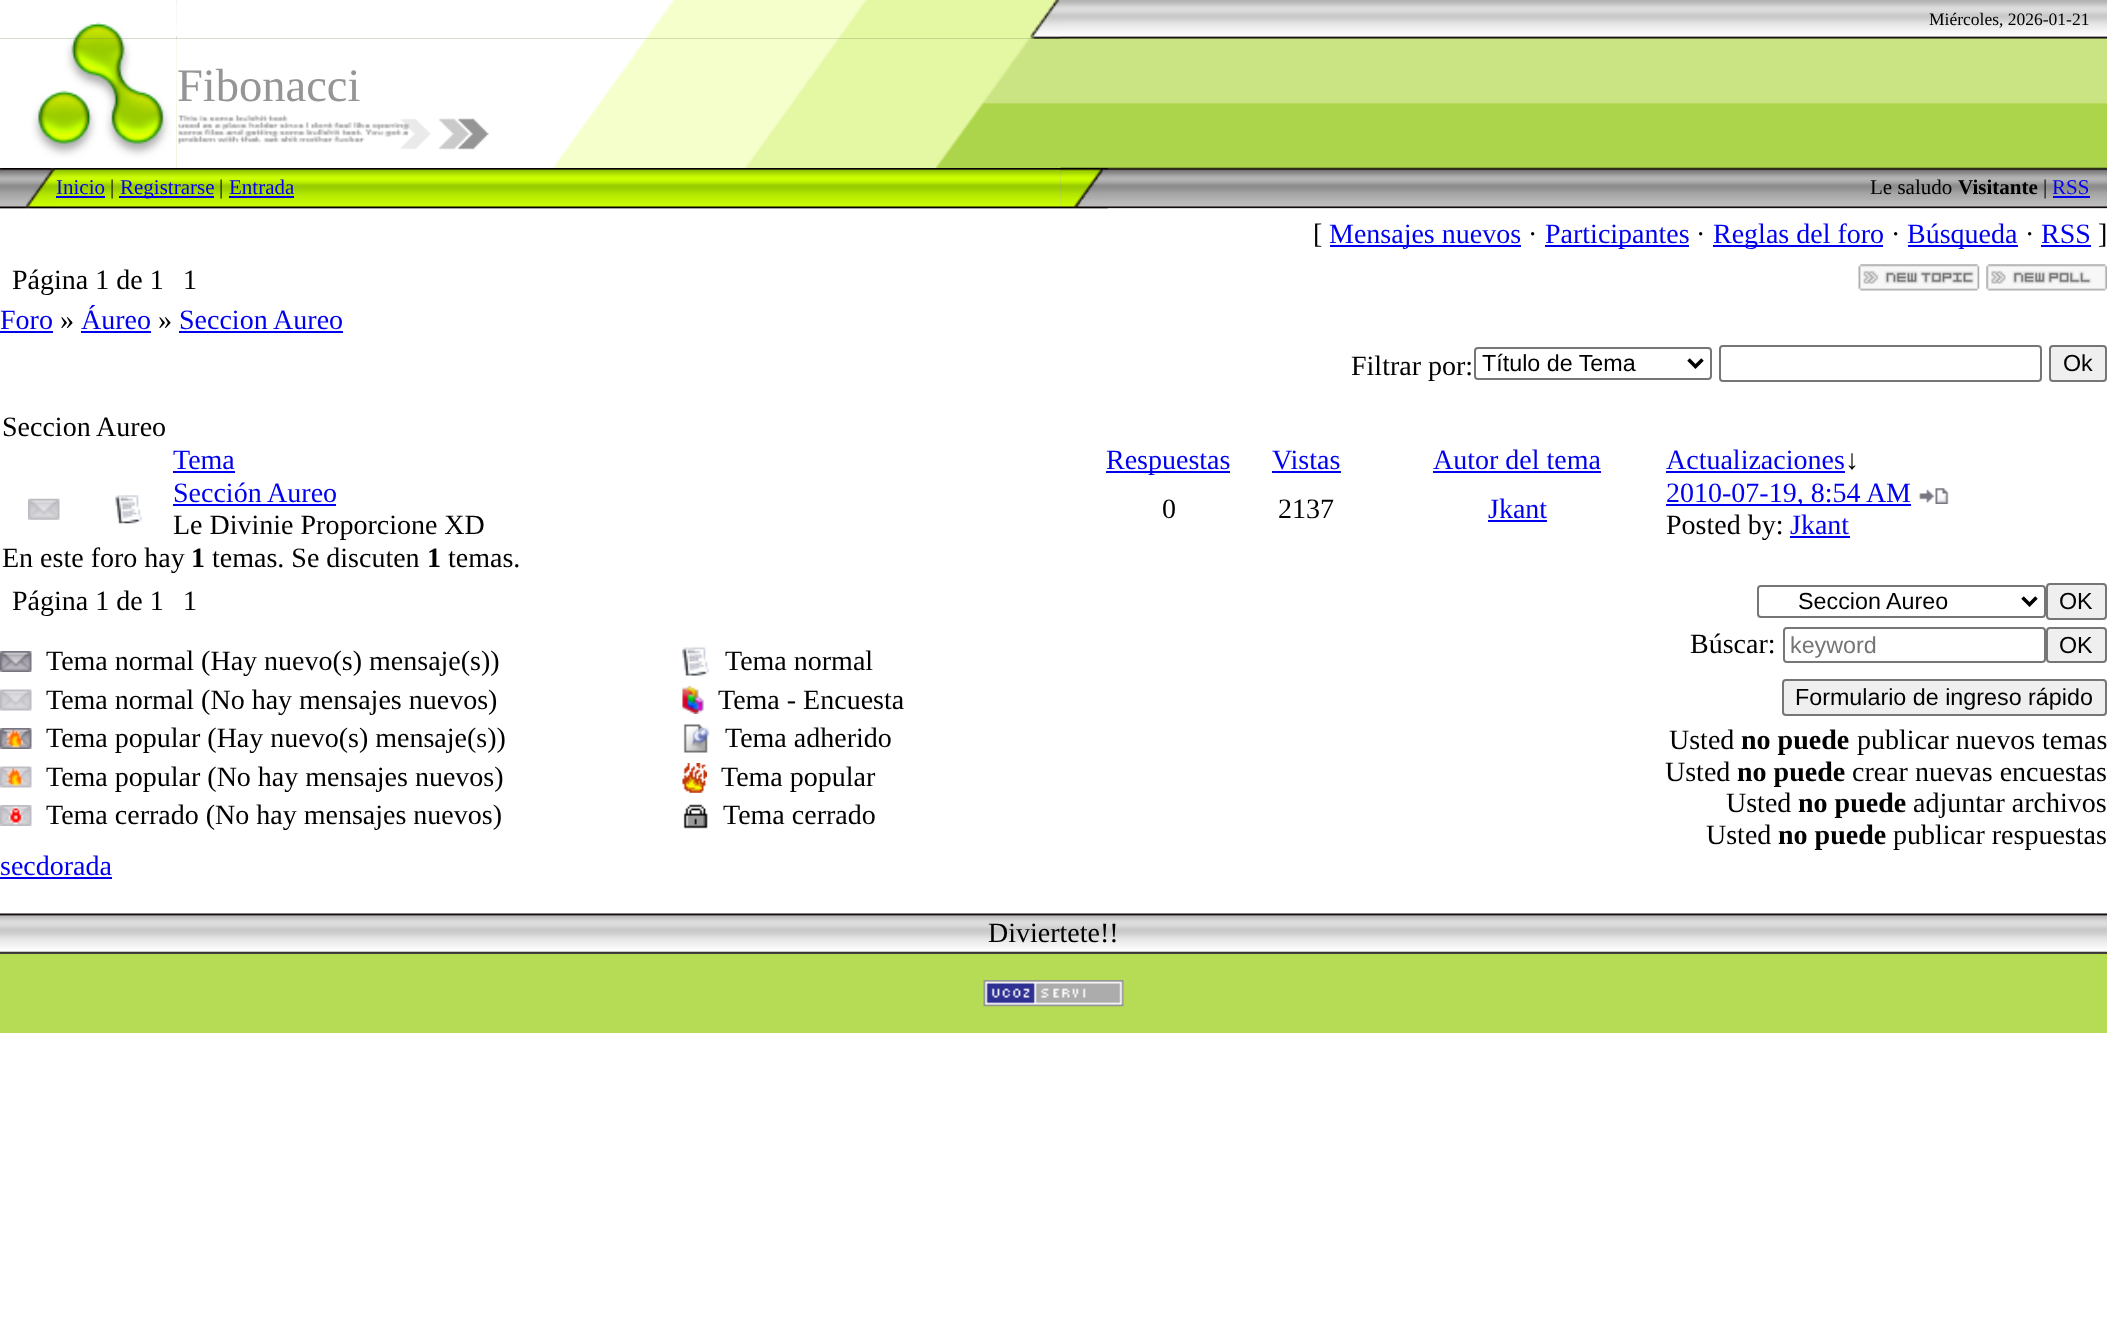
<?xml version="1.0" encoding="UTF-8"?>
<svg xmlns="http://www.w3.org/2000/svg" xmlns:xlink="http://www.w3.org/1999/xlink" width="2107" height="1323">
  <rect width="100%" height="100%" fill="#ffffff" />
  <image x="0" y="0" width="2107" height="209" xlink:href="image1.png" />
  <image x="176" y="38" width="885" height="130" xlink:href="image5.png" />
  <image x="0" y="0" width="177" height="39" xlink:href="image2.png" />
  <image x="176" y="0" width="885" height="39" xlink:href="image3.png" />
  <image x="0" y="38" width="177" height="130" xlink:href="image4.png" />
  <image x="0" y="168" width="56" height="41" xlink:href="image6.png" />
  <image x="56" y="168" width="1005" height="41" xlink:href="image7.png" />
  <rect x="56" y="196" width="49" height="2" fill="#0000ee" />
  <rect x="119" y="196" width="95" height="2" fill="#0000ee" />
  <rect x="229" y="196" width="65" height="2" fill="#0000ee" />
  <image x="1060" y="168" width="48" height="41" xlink:href="image8.png" />
  <rect x="2053" y="196" width="37" height="2" fill="#0000ee" />
  <rect x="1330" y="245" width="191" height="2" fill="#0000ee" />
  <rect x="1545" y="245" width="144" height="2" fill="#0000ee" />
  <rect x="1713" y="245" width="170" height="2" fill="#0000ee" />
  <rect x="1908" y="245" width="110" height="2" fill="#0000ee" />
  <rect x="2041" y="245" width="50" height="2" fill="#0000ee" />
  <image x="1858" y="264" width="122" height="27" xlink:href="image9.png" />
  <image x="1986" y="264" width="121" height="27" xlink:href="image10.png" />
  <rect y="331" width="53" height="2" fill="#0000ee" />
  <rect x="81" y="331" width="70" height="2" fill="#0000ee" />
  <rect x="179" y="331" width="164" height="2" fill="#0000ee" />
  <rect x="1475" y="348" width="236" height="31" rx="3" fill="none" stroke="#767676" stroke-width="2" />
  <path d="M 1688.5 359.5 l 7 7 l 7 -7" fill="none" stroke="#000000" stroke-width="3.5" />
  <rect x="1720" y="346" width="321" height="35" rx="3" fill="none" stroke="#767676" stroke-width="2" />
  <rect x="2050" y="346" width="56" height="35" rx="3" fill="#efefef" stroke="#767676" stroke-width="2" />
  <rect x="173" y="471" width="62" height="2" fill="#0000ee" />
  <rect x="1106" y="471" width="124" height="2" fill="#0000ee" />
  <rect x="1272" y="471" width="69" height="2" fill="#0000ee" />
  <rect x="1433" y="471" width="168" height="2" fill="#0000ee" />
  <rect x="1666" y="471" width="179" height="2" fill="#0000ee" />
  <image x="28" y="498" width="32" height="22" xlink:href="image11.png" />
  <image x="115" y="495" width="28" height="29" xlink:href="image12.png" />
  <rect x="173" y="504" width="163" height="2" fill="#0000ee" />
  <rect x="1488" y="520" width="59" height="2" fill="#0000ee" />
  <rect x="1666" y="504" width="245" height="2" fill="#0000ee" />
  <image x="1919" y="488" width="30" height="16" xlink:href="image13.png" />
  <rect x="1790" y="536" width="60" height="2" fill="#0000ee" />
  <rect x="1758" y="586" width="287" height="31" rx="3" fill="none" stroke="#767676" stroke-width="2" />
  <path d="M 2022.5 597.5 l 7 7 l 7 -7" fill="none" stroke="#000000" stroke-width="3.5" />
  <rect x="2047" y="584" width="59" height="35" rx="3" fill="#efefef" stroke="#767676" stroke-width="2" />
  <image x="0" y="651" width="32" height="21" xlink:href="image14.png" />
  <image x="682" y="647" width="28" height="29" xlink:href="image15.png" />
  <image x="0" y="689" width="32" height="22" xlink:href="image16.png" />
  <image x="682" y="686" width="22" height="28" xlink:href="image17.png" />
  <image x="0" y="728" width="32" height="21" xlink:href="image18.png" />
  <image x="683" y="724" width="27" height="29" xlink:href="image19.png" />
  <image x="0" y="766" width="32" height="22" xlink:href="image20.png" />
  <image x="682" y="763" width="25" height="30" xlink:href="image21.png" />
  <image x="0" y="805" width="32" height="21" xlink:href="image22.png" />
  <image x="683" y="804" width="25" height="25" xlink:href="image23.png" />
  <rect x="1784" y="628" width="261" height="34" rx="3" fill="none" stroke="#767676" stroke-width="2" />
  <rect x="2047" y="628" width="59" height="34" rx="3" fill="#efefef" stroke="#767676" stroke-width="2" />
  <rect x="1783" y="680" width="323" height="35" rx="3" fill="#efefef" stroke="#767676" stroke-width="2" />
  <rect y="877" width="112" height="2" fill="#0000ee" />
  <image x="0" y="913" width="2107" height="41" xlink:href="image24.png" />
  <rect y="954" width="2107" height="79" fill="#b5dc54" />
  <image x="983" y="980" width="141" height="27" xlink:href="image25.png" />
  <text x="1929" y="25" style="font-family: Liberation Serif; font-size: 17.5px; fill: #000000">Miércoles, 2026-01-21</text>
  <text x="177" y="101" style="font-family: Liberation Serif; font-size: 46.5px; fill: #969595">Fibonacci</text>
  <text x="56" y="194" style="font-family: Liberation Serif; font-size: 21px; fill: #0000ee">Inicio</text>
  <text x="110" y="194" style="font-family: Liberation Serif; font-size: 21px; fill: #000000">|</text>
  <text x="120" y="194" style="font-family: Liberation Serif; font-size: 21px; fill: #0000ee">Registrarse</text>
  <text x="219" y="194" style="font-family: Liberation Serif; font-size: 21px; fill: #000000">|</text>
  <text x="229" y="194" style="font-family: Liberation Serif; font-size: 21px; fill: #0000ee">Entrada</text>
  <text x="1870" y="194" style="font-family: Liberation Serif; font-size: 21px; fill: #000000">Le saludo</text>
  <text x="1958" y="194" style="font-family: Liberation Serif; font-size: 21px; font-weight: bold; fill: #000000">Visitante</text>
  <text x="2043" y="194" style="font-family: Liberation Serif; font-size: 21px; fill: #000000">|</text>
  <text x="2052" y="194" style="font-family: Liberation Serif; font-size: 21px; fill: #0000ee">RSS</text>
  <text x="1313" y="243" style="font-family: Liberation Serif; font-size: 28px; fill: #000000">[</text>
  <text x="1329" y="243" style="font-family: Liberation Serif; font-size: 28px; fill: #0000ee">Mensajes nuevos</text>
  <text x="1528" y="243" style="font-family: Liberation Serif; font-size: 28px; fill: #000000">·</text>
  <text x="1545" y="243" style="font-family: Liberation Serif; font-size: 28px; fill: #0000ee">Participantes</text>
  <text x="1696" y="243" style="font-family: Liberation Serif; font-size: 28px; fill: #000000">·</text>
  <text x="1713" y="243" style="font-family: Liberation Serif; font-size: 28px; fill: #0000ee">Reglas del foro</text>
  <text x="1891" y="243" style="font-family: Liberation Serif; font-size: 28px; fill: #000000">·</text>
  <text x="1907" y="243" style="font-family: Liberation Serif; font-size: 28px; fill: #0000ee">Búsqueda</text>
  <text x="2025" y="243" style="font-family: Liberation Serif; font-size: 28px; fill: #000000">·</text>
  <text x="2041" y="243" style="font-family: Liberation Serif; font-size: 28px; fill: #0000ee">RSS</text>
  <text x="2098" y="243" style="font-family: Liberation Serif; font-size: 28px; fill: #000000">]</text>
  <text x="12" y="289" style="font-family: Liberation Serif; font-size: 28px; fill: #000000">Página 1 de 1</text>
  <text x="183" y="289" style="font-family: Liberation Serif; font-size: 28px; fill: #000000">1</text>
  <text x="0" y="329" style="font-family: Liberation Serif; font-size: 28px; fill: #0000ee">Foro</text>
  <text x="60" y="329" style="font-family: Liberation Serif; font-size: 28px; fill: #000000">»</text>
  <text x="81" y="329" style="font-family: Liberation Serif; font-size: 28px; fill: #0000ee">Áureo</text>
  <text x="158" y="329" style="font-family: Liberation Serif; font-size: 28px; fill: #000000">»</text>
  <text x="179" y="329" style="font-family: Liberation Serif; font-size: 28px; fill: #0000ee">Seccion Aureo</text>
  <text x="1351" y="375" style="font-family: Liberation Serif; font-size: 28px; fill: #000000">Filtrar por:</text>
  <text x="1482" y="371" style="font-family: Liberation Sans; font-size: 23.3px; fill: #000000">Título de Tema</text>
  <text x="2063" y="371" style="font-family: Liberation Sans; font-size: 23.3px; fill: #000000">Ok</text>
  <text x="2" y="436" style="font-family: Liberation Serif; font-size: 28px; fill: #000000">Seccion Aureo</text>
  <text x="173" y="469" style="font-family: Liberation Serif; font-size: 28px; fill: #0000ee">Tema</text>
  <text x="1106" y="469" style="font-family: Liberation Serif; font-size: 28px; fill: #0000ee">Respuestas</text>
  <text x="1272" y="469" style="font-family: Liberation Serif; font-size: 28px; fill: #0000ee">Vistas</text>
  <text x="1433" y="469" style="font-family: Liberation Serif; font-size: 28px; fill: #0000ee">Autor del tema</text>
  <text x="1666" y="469" style="font-family: Liberation Serif; font-size: 28px; fill: #0000ee">Actualizaciones</text>
  <text x="1845" y="469" style="font-family: Liberation Serif; font-size: 28px; fill: #000000">↓</text>
  <text x="173" y="502" style="font-family: Liberation Serif; font-size: 28px; fill: #0000ee">Sección Aureo</text>
  <text x="173" y="534" style="font-family: Liberation Serif; font-size: 28px; fill: #000000">Le Divinie Proporcione XD</text>
  <text x="1162" y="518" style="font-family: Liberation Serif; font-size: 28px; fill: #000000">0</text>
  <text x="1278" y="518" style="font-family: Liberation Serif; font-size: 28px; fill: #000000">2137</text>
  <text x="1488" y="518" style="font-family: Liberation Serif; font-size: 28px; fill: #0000ee">Jkant</text>
  <text x="1666" y="502" style="font-family: Liberation Serif; font-size: 28px; fill: #0000ee">2010-07-19, 8:54 AM</text>
  <text x="1666" y="534" style="font-family: Liberation Serif; font-size: 28px; fill: #000000">Posted by:</text>
  <text x="1790" y="534" style="font-family: Liberation Serif; font-size: 28px; fill: #0000ee">Jkant</text>
  <text x="2" y="567" style="font-family: Liberation Serif; font-size: 28px; fill: #000000">En este foro hay</text>
  <text x="191" y="567" style="font-family: Liberation Serif; font-size: 28px; font-weight: bold; fill: #000000">1</text>
  <text x="212" y="567" style="font-family: Liberation Serif; font-size: 28px; fill: #000000">temas. Se discuten</text>
  <text x="427" y="567" style="font-family: Liberation Serif; font-size: 28px; font-weight: bold; fill: #000000">1</text>
  <text x="448" y="567" style="font-family: Liberation Serif; font-size: 28px; fill: #000000">temas.</text>
  <text x="12" y="610" style="font-family: Liberation Serif; font-size: 28px; fill: #000000">Página 1 de 1</text>
  <text x="183" y="610" style="font-family: Liberation Serif; font-size: 28px; fill: #000000">1</text>
  <text x="1798" y="609" style="font-family: Liberation Sans; font-size: 23.3px; fill: #000000">Seccion Aureo</text>
  <text x="2059" y="609" style="font-family: Liberation Sans; font-size: 23.3px; fill: #000000">OK</text>
  <text x="46" y="670" style="font-family: Liberation Serif; font-size: 28px; fill: #000000">Tema normal (Hay nuevo(s) mensaje(s))</text>
  <text x="725" y="670" style="font-family: Liberation Serif; font-size: 28px; fill: #000000">Tema normal</text>
  <text x="46" y="709" style="font-family: Liberation Serif; font-size: 28px; fill: #000000">Tema normal (No hay mensajes nuevos)</text>
  <text x="718" y="709" style="font-family: Liberation Serif; font-size: 28px; fill: #000000">Tema - Encuesta</text>
  <text x="46" y="747" style="font-family: Liberation Serif; font-size: 28px; fill: #000000">Tema popular (Hay nuevo(s) mensaje(s))</text>
  <text x="725" y="747" style="font-family: Liberation Serif; font-size: 28px; fill: #000000">Tema adherido</text>
  <text x="46" y="786" style="font-family: Liberation Serif; font-size: 28px; fill: #000000">Tema popular (No hay mensajes nuevos)</text>
  <text x="721" y="786" style="font-family: Liberation Serif; font-size: 28px; fill: #000000">Tema popular</text>
  <text x="46" y="824" style="font-family: Liberation Serif; font-size: 28px; fill: #000000">Tema cerrado (No hay mensajes nuevos)</text>
  <text x="723" y="824" style="font-family: Liberation Serif; font-size: 28px; fill: #000000">Tema cerrado</text>
  <text x="1690" y="653" style="font-family: Liberation Serif; font-size: 28px; fill: #000000">Búscar:</text>
  <text x="1790" y="653" style="font-family: Liberation Sans; font-size: 23.3px; fill: #757575">keyword</text>
  <text x="2059" y="653" style="font-family: Liberation Sans; font-size: 23.3px; fill: #000000">OK</text>
  <text x="1795" y="705" style="font-family: Liberation Sans; font-size: 23.3px; fill: #000000">Formulario de ingreso rápido</text>
  <text x="1669" y="749" style="font-family: Liberation Serif; font-size: 28px; fill: #000000">Usted</text>
  <text x="1741" y="749" style="font-family: Liberation Serif; font-size: 28px; font-weight: bold; fill: #000000">no puede</text>
  <text x="1857" y="749" style="font-family: Liberation Serif; font-size: 28px; fill: #000000">publicar nuevos temas</text>
  <text x="1665" y="781" style="font-family: Liberation Serif; font-size: 28px; fill: #000000">Usted</text>
  <text x="1737" y="781" style="font-family: Liberation Serif; font-size: 28px; font-weight: bold; fill: #000000">no puede</text>
  <text x="1852" y="781" style="font-family: Liberation Serif; font-size: 28px; fill: #000000">crear nuevas encuestas</text>
  <text x="1726" y="812" style="font-family: Liberation Serif; font-size: 28px; fill: #000000">Usted</text>
  <text x="1798" y="812" style="font-family: Liberation Serif; font-size: 28px; font-weight: bold; fill: #000000">no puede</text>
  <text x="1913" y="812" style="font-family: Liberation Serif; font-size: 28px; fill: #000000">adjuntar archivos</text>
  <text x="1706" y="844" style="font-family: Liberation Serif; font-size: 28px; fill: #000000">Usted</text>
  <text x="1778" y="844" style="font-family: Liberation Serif; font-size: 28px; font-weight: bold; fill: #000000">no puede</text>
  <text x="1893" y="844" style="font-family: Liberation Serif; font-size: 28px; fill: #000000">publicar respuestas</text>
  <text x="0" y="875" style="font-family: Liberation Serif; font-size: 28px; fill: #0000ee">secdorada</text>
  <text x="988" y="942" style="font-family: Liberation Serif; font-size: 28px; fill: #000000">Diviertete!!</text>
</svg>
